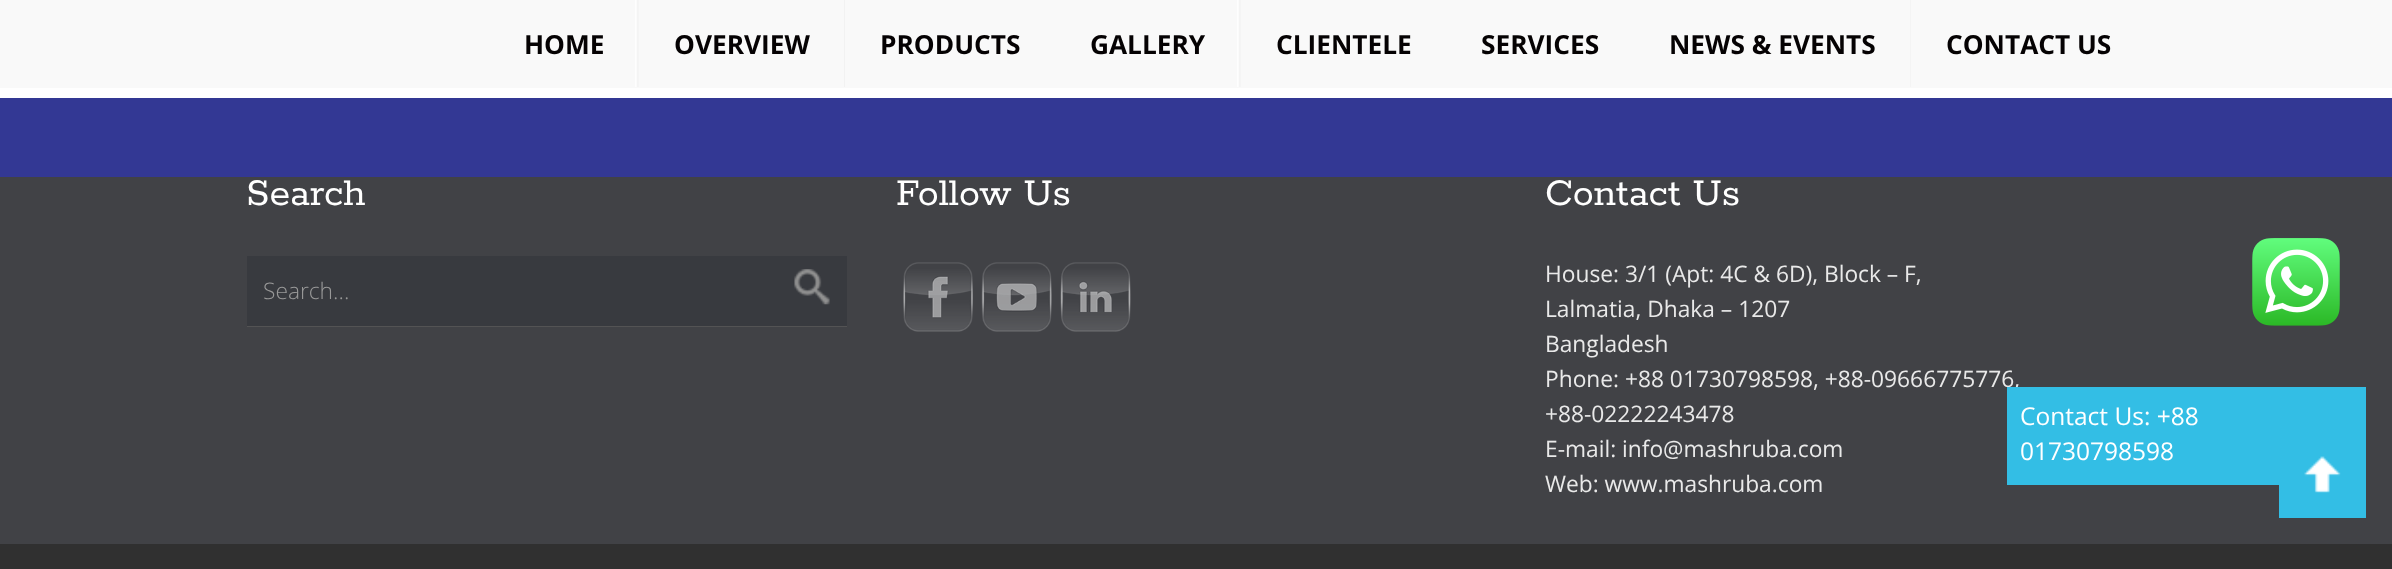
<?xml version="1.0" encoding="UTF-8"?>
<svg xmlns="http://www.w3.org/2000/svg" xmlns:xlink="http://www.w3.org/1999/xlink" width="2392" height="569">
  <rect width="100%" height="100%" fill="#ffffff" />
  <rect width="2392" height="88" fill="#f9f9f9" />
  <image x="635" y="0" width="4" height="87" xlink:href="image1.png" />
  <rect x="844" width="1" height="87" fill="#f2f2f2" />
  <image x="1237" y="0" width="4" height="87" xlink:href="image1.png" />
  <rect x="1910" width="1" height="87" fill="#f4f4f4" />
  <rect y="98" width="2392" height="79" fill="#333894" />
  <rect y="177" width="2392" height="367" fill="#414246" />
  <rect x="247" y="326" width="600" height="1" fill="#535354" />
  <rect x="247" y="256" width="600" height="70" fill="#383a3f" />
  <image x="794" y="269" width="36" height="36" xlink:href="image2.png" />
  <image x="903" y="262" width="70" height="70" xlink:href="image3.png" />
  <image x="981" y="262" width="71" height="70" xlink:href="image4.png" />
  <image x="1060" y="262" width="71" height="70" xlink:href="image5.png" />
  <rect x="2279" y="485" width="87" height="33" fill="#33bee5" />
  <rect y="544" width="2392" height="25" fill="#303030" />
  <image x="2252" y="238" width="88" height="88" xlink:href="image7.png" />
  <text x="524" y="54" style="font-family: Open Sans; font-size: 26.25px; font-weight: bold; fill: #050203">HOME</text>
  <text x="674" y="54" style="font-family: Open Sans; font-size: 26.25px; font-weight: bold; fill: #050203">OVERVIEW</text>
  <text x="880" y="54" style="font-family: Open Sans; font-size: 26.25px; font-weight: bold; fill: #050203">PRODUCTS</text>
  <text x="1090" y="54" style="font-family: Open Sans; font-size: 26.25px; font-weight: bold; fill: #050203">GALLERY</text>
  <text x="1276" y="54" style="font-family: Open Sans; font-size: 26.25px; font-weight: bold; fill: #050203">CLIENTELE</text>
  <text x="1481" y="54" style="font-family: Open Sans; font-size: 26.25px; font-weight: bold; fill: #050203">SERVICES</text>
  <text x="1669" y="54" style="font-family: Open Sans; font-size: 26.25px; font-weight: bold; fill: #050203">NEWS &amp; EVENTS</text>
  <text x="1946" y="54" style="font-family: Open Sans; font-size: 26.25px; font-weight: bold; fill: #050203">CONTACT US</text>
  <text x="246" y="205" style="font-family: Rokkitt; font-size: 42px; fill: #ffffff">Search</text>
  <text x="263" y="299" style="font-family: Open Sans; font-size: 22.75px; font-weight: 300; fill: #999999">Search...</text>
  <text x="896" y="205" style="font-family: Rokkitt; font-size: 42px; fill: #ffffff">Follow Us</text>
  <text x="1545" y="205" style="font-family: Rokkitt; font-size: 42px; fill: #ffffff">Contact Us</text>
  <text x="1545" y="282" style="font-family: Open Sans; font-size: 22.75px; fill: #e9e9e9">House: 3/1 (Apt: 4C &amp; 6D), Block – F,</text>
  <text x="1545" y="317" style="font-family: Open Sans; font-size: 22.75px; fill: #e9e9e9">Lalmatia, Dhaka – 1207</text>
  <text x="1545" y="352" style="font-family: Open Sans; font-size: 22.75px; fill: #e9e9e9">Bangladesh</text>
  <text x="1545" y="387" style="font-family: Open Sans; font-size: 22.75px; fill: #e9e9e9">Phone: +88 01730798598, +88-09666775776,</text>
  <text x="1545" y="422" style="font-family: Open Sans; font-size: 22.75px; fill: #e9e9e9">+88-02222243478</text>
  <text x="1545" y="457" style="font-family: Open Sans; font-size: 22.75px; fill: #e9e9e9">E-mail: info@mashruba.com</text>
  <text x="1545" y="492" style="font-family: Open Sans; font-size: 22.75px; fill: #e9e9e9">Web: www.mashruba.com</text>
  <rect x="2007" y="387" width="359" height="98" fill="#33bee5" />
  <text x="2020" y="425" style="font-family: Open Sans; font-size: 24.5px; fill: #ffffff">Contact Us: +88</text>
  <text x="2020" y="460" style="font-family: Open Sans; font-size: 24.5px; fill: #ffffff">01730798598</text>
  <image x="2304" y="456" width="37" height="37" xlink:href="image6.png" />
</svg>
